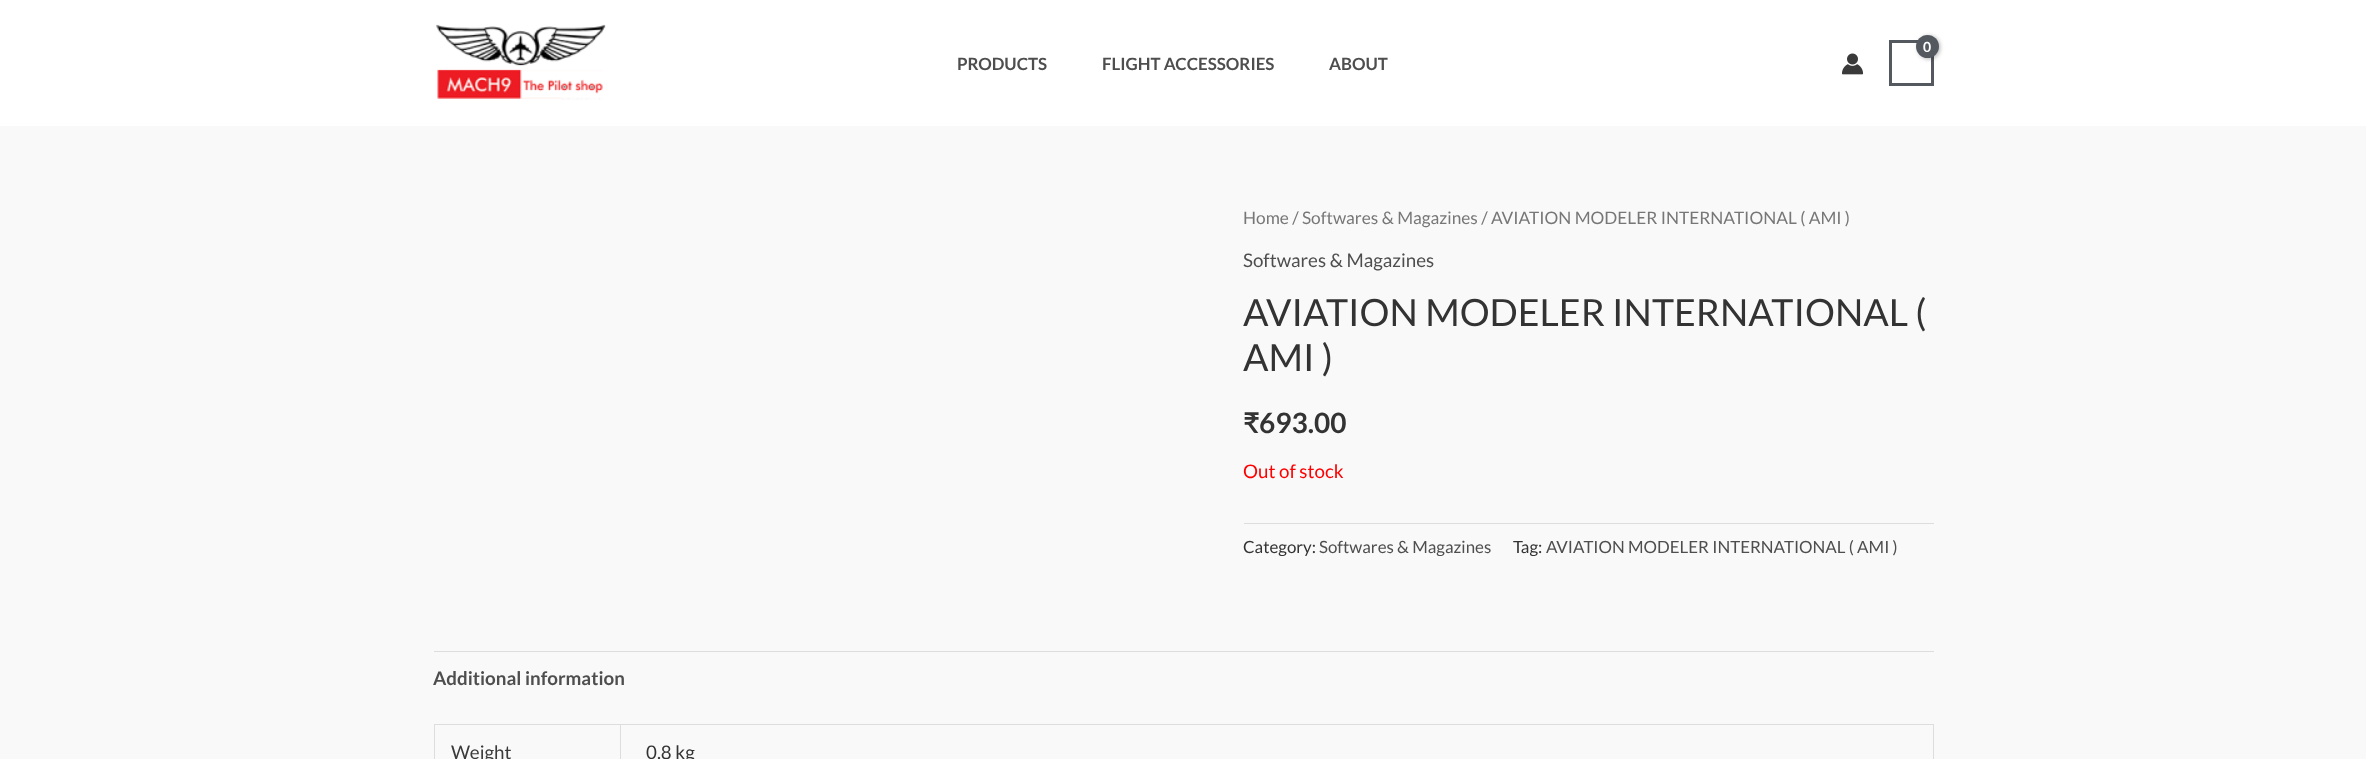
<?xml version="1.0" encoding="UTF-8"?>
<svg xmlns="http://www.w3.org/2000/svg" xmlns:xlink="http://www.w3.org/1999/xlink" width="2366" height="759">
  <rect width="100%" height="100%" fill="#f9f9f9" />
  <rect width="2366" height="126" fill="#ffffff" />
  <image x="436" y="24" width="170" height="76" xlink:href="image1.png" />
  <rect x="1890.5" y="41.5" width="42" height="43" fill="none" stroke="#54595f" stroke-width="3" />
  <rect x="1918" y="36" width="22" height="23" rx="11" fill="#000000" fill-opacity="0.3" filter="blur(2px)" />
  <circle cx="1927.5" cy="46.5" r="11.5" fill="#54595f" />
  <image x="1842" y="53" width="22" height="22" xlink:href="image2.png" />
  <rect x="1244" y="523" width="690" height="1" fill="#dddddd" />
  <rect x="434" y="651" width="1500" height="1" fill="#dddddd" />
  <rect x="434" y="724" width="1500" height="1" fill="#dddddd" />
  <rect x="620" y="725" width="1" height="34" fill="#dddddd" />
  <rect x="434" y="725" width="1" height="34" fill="#dddddd" />
  <rect x="1933" y="725" width="1" height="34" fill="#dddddd" />
  <text x="1923" y="52" style="font-family: 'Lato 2'; font-size: 14px; font-weight: bold; letter-spacing: -1px; fill: #ffffff">0</text>
  <text x="957" y="70" style="font-family: 'Lato 2'; font-size: 16.9px; font-weight: bold; fill: #4e4e4e">PRODUCTS</text>
  <text x="1102" y="70" style="font-family: 'Lato 2'; font-size: 16.9px; font-weight: bold; fill: #4e4e4e">FLIGHT ACCESSORIES</text>
  <text x="1329" y="70" style="font-family: 'Lato 2'; font-size: 16.9px; font-weight: bold; fill: #4e4e4e">ABOUT</text>
  <text x="1243" y="224" style="font-family: Lato; font-size: 17.25px; fill: #777777">Home / Softwares &amp; Magazines / AVIATION MODELER INTERNATIONAL ( AMI )</text>
  <text x="1243" y="267" style="font-family: Lato; font-size: 18.75px; fill: #4e4e4e">Softwares &amp; Magazines</text>
  <text x="1243" y="326" style="font-family: Lato; font-size: 37.5px; fill: #333333">AVIATION MODELER INTERNATIONAL (</text>
  <text x="1243" y="371" style="font-family: Lato; font-size: 37.5px; fill: #333333">AMI )</text>
  <text x="1243" y="433" style="font-family: Lato; font-size: 28px; font-weight: bold; fill: #333333">₹</text>
  <text x="1259" y="433" style="font-family: 'Lato 2'; font-size: 28px; font-weight: bold; fill: #333333">693.00</text>
  <text x="1243" y="478" style="font-family: Lato; font-size: 18.75px; fill: #ff0000">Out of stock</text>
  <text x="1243" y="553" style="font-family: Lato; font-size: 16.9px; fill: #333333">Category:</text>
  <text x="1319" y="553" style="font-family: Lato; font-size: 16.9px; fill: #4e4e4e">Softwares &amp; Magazines</text>
  <text x="1513" y="553" style="font-family: Lato; font-size: 16.9px; fill: #333333">Tag:</text>
  <text x="1546" y="553" style="font-family: Lato; font-size: 16.9px; fill: #4e4e4e">AVIATION MODELER INTERNATIONAL ( AMI )</text>
  <text x="433" y="685" style="font-family: 'Lato 2'; font-size: 18.75px; font-weight: bold; fill: #4e4e4e">Additional information</text>
  <text x="451" y="759" style="font-family: Lato; font-size: 18.75px; fill: #3a3a3a">Weight</text>
  <text x="646" y="759" style="font-family: Lato; font-size: 18.75px; fill: #333333">0.8 kg</text>
</svg>
